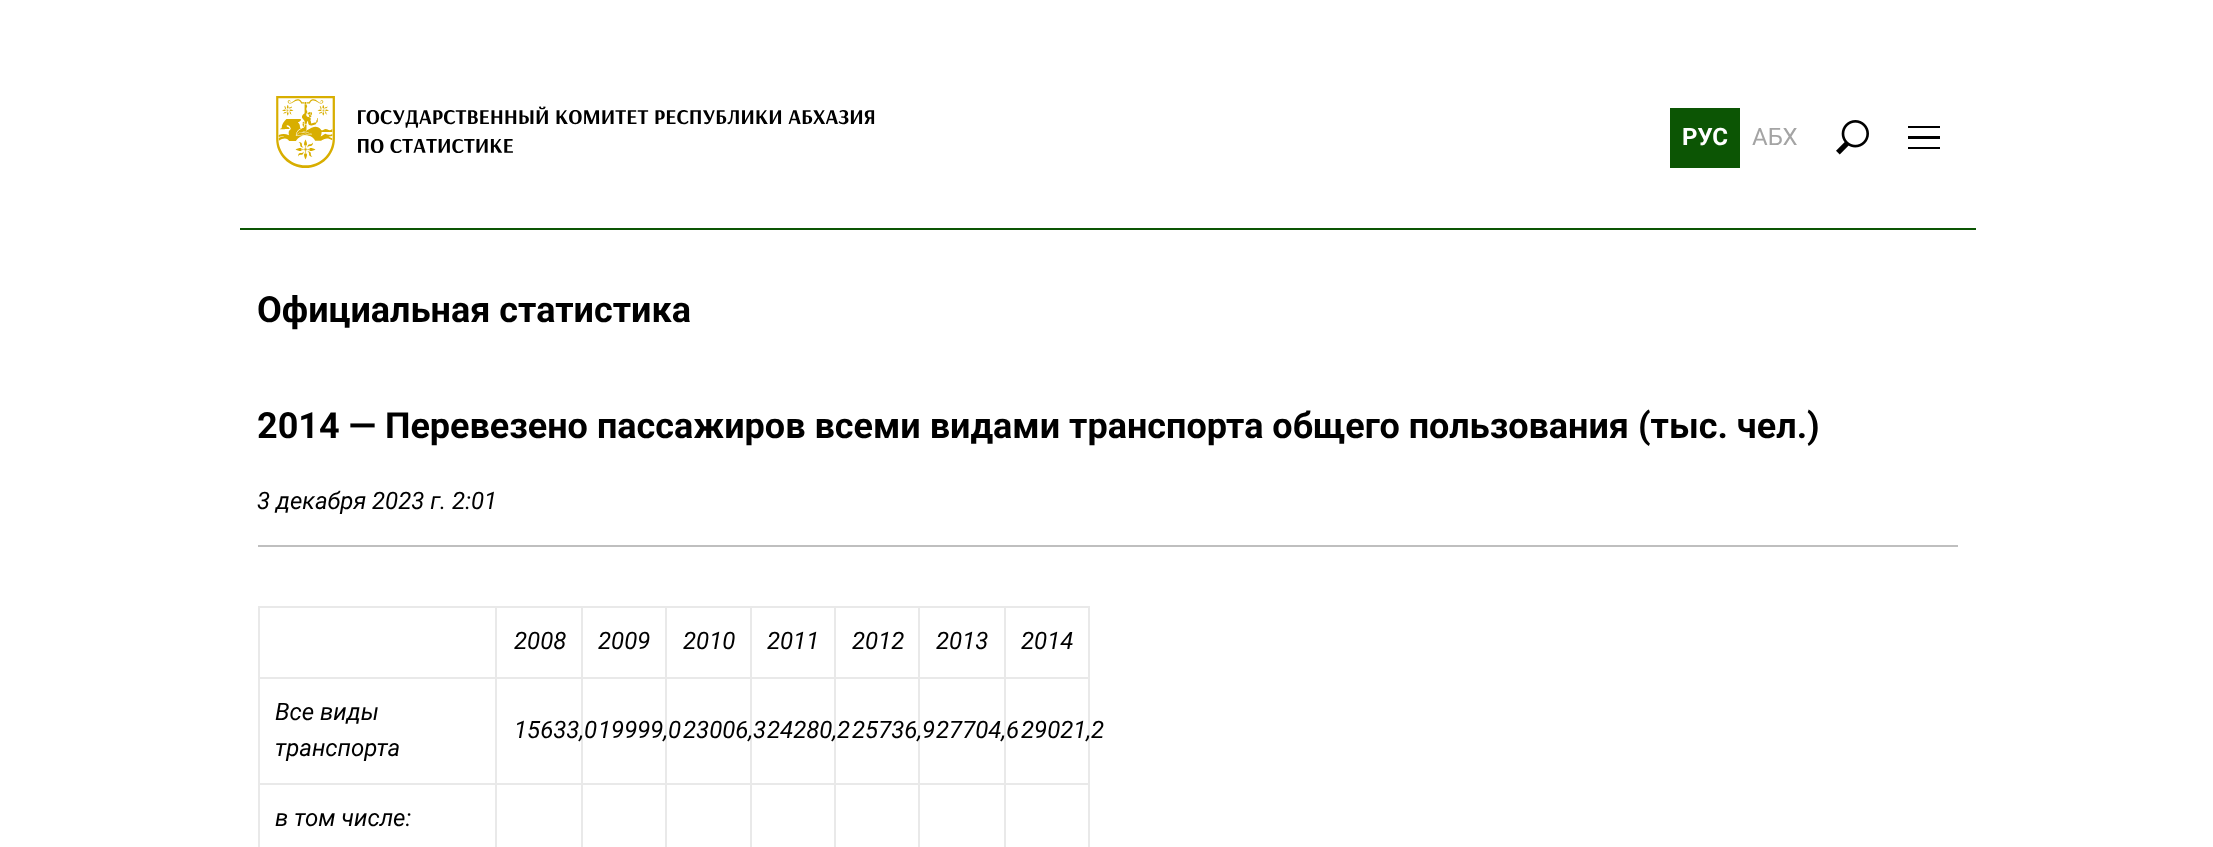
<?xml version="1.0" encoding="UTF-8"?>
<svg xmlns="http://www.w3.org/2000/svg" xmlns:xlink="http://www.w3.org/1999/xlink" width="2213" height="847">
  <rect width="100%" height="100%" fill="#ffffff" />
  <rect x="240" y="228" width="1736" height="2" fill="#0c5504" />
  <image x="276" y="96" width="599" height="72" xlink:href="image1.png" />
  <rect x="1670" y="108" width="70" height="60" fill="#0c5504" />
  <image x="1836" y="120" width="33" height="35" xlink:href="image2.png" />
  <rect x="1908" y="126" width="32" height="2" fill="#000000" />
  <rect x="1908" y="136" width="32" height="3" fill="#000000" />
  <rect x="1908" y="147" width="32" height="2" fill="#000000" />
  <rect x="258" y="545" width="1700" height="2" fill="#bfbfbf" />
  <rect x="1004" y="606" width="85" height="2" fill="#e9e9e9" />
  <rect x="1004" y="677" width="85" height="2" fill="#e9e9e9" />
  <rect x="1004" y="783" width="85" height="2" fill="#e9e9e9" />
  <rect x="1004" y="783" width="2" height="64" fill="#e9e9e9" />
  <rect x="918" y="783" width="87" height="2" fill="#e9e9e9" />
  <rect x="1004" y="677" width="2" height="108" fill="#e9e9e9" />
  <rect x="918" y="677" width="87" height="2" fill="#e9e9e9" />
  <rect x="1004" y="606" width="2" height="72" fill="#e9e9e9" />
  <rect x="918" y="606" width="87" height="2" fill="#e9e9e9" />
  <rect x="918" y="783" width="2" height="64" fill="#e9e9e9" />
  <rect x="834" y="783" width="86" height="2" fill="#e9e9e9" />
  <rect x="918" y="677" width="2" height="108" fill="#e9e9e9" />
  <rect x="834" y="677" width="86" height="2" fill="#e9e9e9" />
  <rect x="918" y="606" width="2" height="72" fill="#e9e9e9" />
  <rect x="834" y="606" width="86" height="2" fill="#e9e9e9" />
  <rect x="834" y="783" width="2" height="64" fill="#e9e9e9" />
  <rect x="750" y="783" width="86" height="2" fill="#e9e9e9" />
  <rect x="834" y="677" width="2" height="108" fill="#e9e9e9" />
  <rect x="750" y="677" width="86" height="2" fill="#e9e9e9" />
  <rect x="834" y="606" width="2" height="72" fill="#e9e9e9" />
  <rect x="750" y="606" width="86" height="2" fill="#e9e9e9" />
  <rect x="750" y="783" width="2" height="64" fill="#e9e9e9" />
  <rect x="665" y="783" width="87" height="2" fill="#e9e9e9" />
  <rect x="750" y="677" width="2" height="108" fill="#e9e9e9" />
  <rect x="665" y="677" width="87" height="2" fill="#e9e9e9" />
  <rect x="750" y="606" width="2" height="72" fill="#e9e9e9" />
  <rect x="665" y="606" width="87" height="2" fill="#e9e9e9" />
  <rect x="665" y="783" width="2" height="64" fill="#e9e9e9" />
  <rect x="581" y="783" width="85" height="2" fill="#e9e9e9" />
  <rect x="665" y="677" width="2" height="108" fill="#e9e9e9" />
  <rect x="581" y="677" width="85" height="2" fill="#e9e9e9" />
  <rect x="665" y="606" width="2" height="72" fill="#e9e9e9" />
  <rect x="581" y="606" width="85" height="2" fill="#e9e9e9" />
  <rect x="581" y="783" width="2" height="64" fill="#e9e9e9" />
  <rect x="495" y="783" width="87" height="2" fill="#e9e9e9" />
  <rect x="581" y="677" width="2" height="108" fill="#e9e9e9" />
  <rect x="495" y="677" width="87" height="2" fill="#e9e9e9" />
  <rect x="581" y="606" width="2" height="72" fill="#e9e9e9" />
  <rect x="495" y="606" width="87" height="2" fill="#e9e9e9" />
  <rect x="495" y="783" width="2" height="64" fill="#e9e9e9" />
  <rect x="258" y="783" width="239" height="2" fill="#e9e9e9" />
  <rect x="495" y="677" width="2" height="108" fill="#e9e9e9" />
  <rect x="258" y="677" width="239" height="2" fill="#e9e9e9" />
  <rect x="495" y="606" width="2" height="72" fill="#e9e9e9" />
  <rect x="258" y="606" width="239" height="2" fill="#e9e9e9" />
  <rect x="258" y="783" width="2" height="64" fill="#e9e9e9" />
  <rect x="258" y="677" width="2" height="108" fill="#e9e9e9" />
  <rect x="258" y="606" width="2" height="72" fill="#e9e9e9" />
  <rect x="1088" y="783" width="2" height="64" fill="#e9e9e9" />
  <rect x="1088" y="677" width="2" height="108" fill="#e9e9e9" />
  <rect x="1088" y="606" width="2" height="72" fill="#e9e9e9" />
  <text x="1682" y="145" style="font-family: Roboto; font-size: 24px; font-weight: bold; fill: #ffffff">РУС</text>
  <text x="1752" y="145" style="font-family: Roboto; font-size: 24px; fill: #a4a4a4">АБХ</text>
  <text x="257" y="322" style="font-family: Roboto; font-size: 36px; font-weight: bold; fill: #000000">Официальная статистика</text>
  <text x="257" y="438" style="font-family: Roboto; font-size: 36px; font-weight: bold; fill: #000000">2014 — Перевезено пассажиров всеми видами транспорта общего пользования (тыс. чел.)</text>
  <text x="257" y="509" style="font-family: Roboto; font-size: 24px; font-style: italic; fill: #000000">3 декабря 2023 г. 2:01</text>
  <text x="514" y="649" style="font-family: Roboto; font-size: 24px; font-style: italic; fill: #000000">2008</text>
  <text x="598" y="649" style="font-family: Roboto; font-size: 24px; font-style: italic; fill: #000000">2009</text>
  <text x="683" y="649" style="font-family: Roboto; font-size: 24px; font-style: italic; fill: #000000">2010</text>
  <text x="767" y="649" style="font-family: Roboto; font-size: 24px; font-style: italic; fill: #000000">2011</text>
  <text x="852" y="649" style="font-family: Roboto; font-size: 24px; font-style: italic; fill: #000000">2012</text>
  <text x="936" y="649" style="font-family: Roboto; font-size: 24px; font-style: italic; fill: #000000">2013</text>
  <text x="1021" y="649" style="font-family: Roboto; font-size: 24px; font-style: italic; fill: #000000">2014</text>
  <text x="275" y="720" style="font-family: Roboto; font-size: 24px; font-style: italic; fill: #000000">Все виды</text>
  <text x="275" y="756" style="font-family: Roboto; font-size: 24px; font-style: italic; fill: #000000">транспорта</text>
  <text x="514" y="738" style="font-family: Roboto; font-size: 24px; font-style: italic; fill: #000000">15633,0</text>
  <text x="598" y="738" style="font-family: Roboto; font-size: 24px; font-style: italic; fill: #000000">19999,0</text>
  <text x="683" y="738" style="font-family: Roboto; font-size: 24px; font-style: italic; fill: #000000">23006,3</text>
  <text x="767" y="738" style="font-family: Roboto; font-size: 24px; font-style: italic; fill: #000000">24280,2</text>
  <text x="852" y="738" style="font-family: Roboto; font-size: 24px; font-style: italic; fill: #000000">25736,9</text>
  <text x="936" y="738" style="font-family: Roboto; font-size: 24px; font-style: italic; fill: #000000">27704,6</text>
  <text x="1021" y="738" style="font-family: Roboto; font-size: 24px; font-style: italic; fill: #000000">29021,2</text>
  <text x="275" y="826" style="font-family: Roboto; font-size: 24px; font-style: italic; fill: #000000">в том числе:</text>
</svg>
